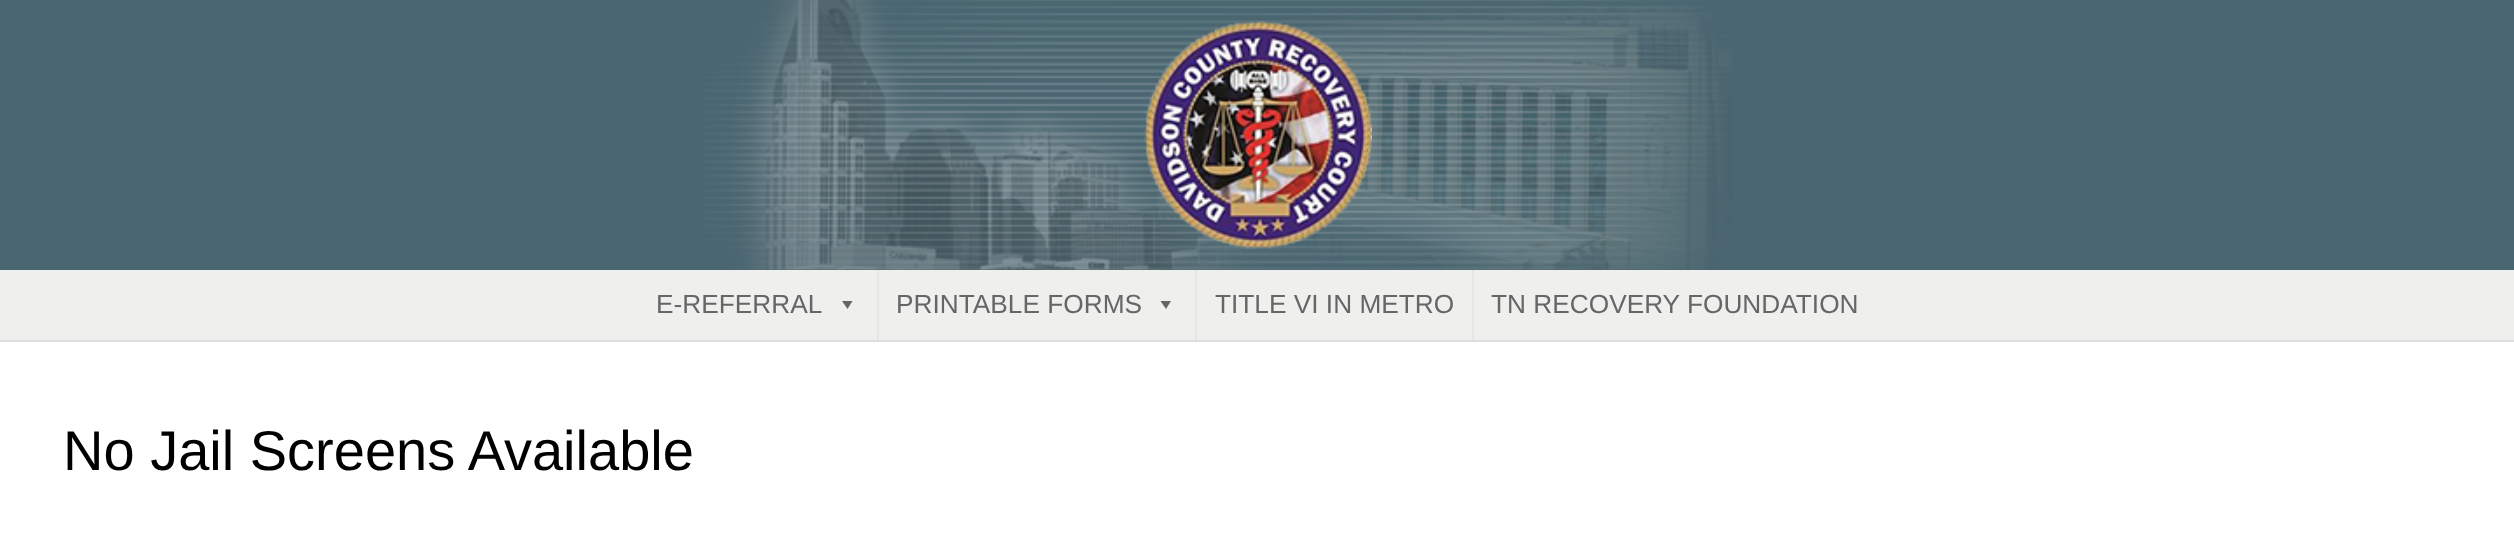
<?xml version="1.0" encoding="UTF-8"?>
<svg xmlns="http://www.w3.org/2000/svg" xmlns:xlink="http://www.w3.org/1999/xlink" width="2514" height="558">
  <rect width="100%" height="100%" fill="#ffffff" />
  <rect width="2514" height="270" fill="#4a6671" />
  <image x="704" y="0" width="1029" height="270" xlink:href="image1.png" />
  <image x="1144" y="21" width="228" height="228" xlink:href="image2.png" />
  <rect y="340" width="2514" height="2" fill="#dddddd" />
  <rect y="270" width="2514" height="70" fill="#efefee" />
  <path d="M 852.5 301 l -5 8 l -5.5 -8 z" fill="#666666" />
  <rect x="877" y="270" width="2" height="70" fill="#e6e6e6" />
  <path d="M 1171 301 l -5 8 l -5.5 -8 z" fill="#666666" />
  <rect x="1195" y="270" width="2" height="70" fill="#e6e6e6" />
  <rect x="1472" y="270" width="2" height="70" fill="#e6e6e6" />
  <text x="656" y="313" style="font-family: Liberation Sans; font-size: 26.25px; fill: #666666">E-REFERRAL</text>
  <text x="896" y="313" style="font-family: Liberation Sans; font-size: 26.25px; fill: #666666">PRINTABLE FORMS</text>
  <text x="1215" y="313" style="font-family: Liberation Sans; font-size: 26.25px; fill: #666666">TITLE VI IN METRO</text>
  <text x="1491" y="313" style="font-family: Liberation Sans; font-size: 26.25px; fill: #666666">TN RECOVERY FOUNDATION</text>
  <text x="63" y="470" style="font-family: Liberation Sans; font-size: 56px; fill: #000000">No Jail Screens Available</text>
</svg>
